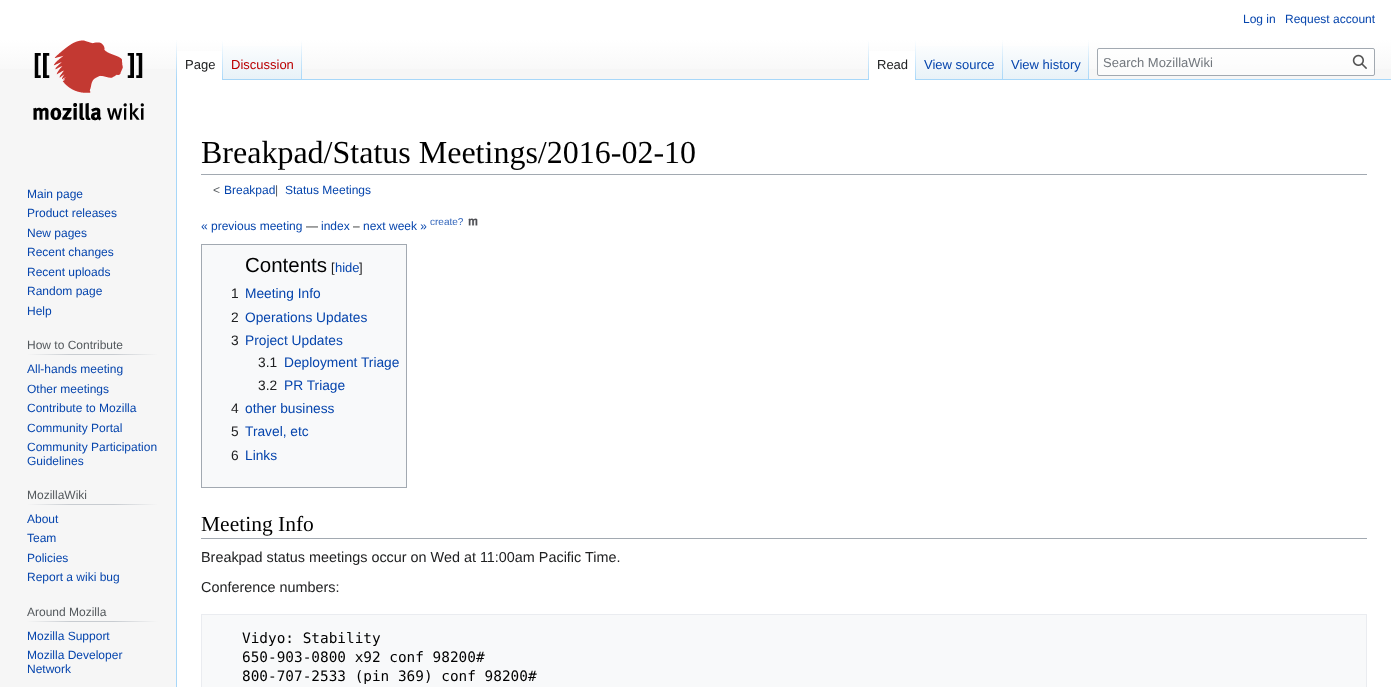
<?xml version="1.0" encoding="UTF-8"?>
<svg xmlns="http://www.w3.org/2000/svg" xmlns:xlink="http://www.w3.org/1999/xlink" width="1391" height="687">
  <defs>
    <linearGradient id="g1" gradientUnits="userSpaceOnUse" x1="696" y1="0" x2="696" y2="80"><stop offset="0.5" stop-color="#ffffff" /><stop offset="1" stop-color="#f6f6f6" /></linearGradient>
    <linearGradient id="g2" gradientUnits="userSpaceOnUse" x1="177" y1="40" x2="177" y2="80"><stop offset="0" stop-color="#a7d7f9" stop-opacity="0" /><stop offset="1" stop-color="#a7d7f9" /></linearGradient>
    <linearGradient id="g3" gradientUnits="userSpaceOnUse" x1="223" y1="40" x2="223" y2="80"><stop offset="0" stop-color="#ffffff" /><stop offset="1" stop-color="#a7d7f9" /></linearGradient>
    <linearGradient id="g4" gradientUnits="userSpaceOnUse" x1="263" y1="80" x2="263" y2="40"><stop offset="0" stop-color="#77c1f6" /><stop offset="0.03" stop-color="#e8f2f8" /><stop offset="1" stop-color="#ffffff" /></linearGradient>
    <linearGradient id="g5" gradientUnits="userSpaceOnUse" x1="302" y1="40" x2="302" y2="80"><stop offset="0" stop-color="#a7d7f9" stop-opacity="0" /><stop offset="1" stop-color="#a7d7f9" /></linearGradient>
    <linearGradient id="g6" gradientUnits="userSpaceOnUse" x1="869" y1="40" x2="869" y2="80"><stop offset="0" stop-color="#a7d7f9" stop-opacity="0" /><stop offset="1" stop-color="#a7d7f9" /></linearGradient>
    <linearGradient id="g7" gradientUnits="userSpaceOnUse" x1="916" y1="40" x2="916" y2="80"><stop offset="0" stop-color="#ffffff" /><stop offset="1" stop-color="#a7d7f9" /></linearGradient>
    <linearGradient id="g8" gradientUnits="userSpaceOnUse" x1="960" y1="80" x2="960" y2="40"><stop offset="0" stop-color="#77c1f6" /><stop offset="0.03" stop-color="#e8f2f8" /><stop offset="1" stop-color="#ffffff" /></linearGradient>
    <linearGradient id="g9" gradientUnits="userSpaceOnUse" x1="1003" y1="40" x2="1003" y2="80"><stop offset="0" stop-color="#a7d7f9" stop-opacity="0" /><stop offset="1" stop-color="#a7d7f9" /></linearGradient>
    <linearGradient id="g10" gradientUnits="userSpaceOnUse" x1="1046" y1="80" x2="1046" y2="40"><stop offset="0" stop-color="#77c1f6" /><stop offset="0.03" stop-color="#e8f2f8" /><stop offset="1" stop-color="#ffffff" /></linearGradient>
    <linearGradient id="g11" gradientUnits="userSpaceOnUse" x1="1089" y1="40" x2="1089" y2="80"><stop offset="0" stop-color="#a7d7f9" stop-opacity="0" /><stop offset="1" stop-color="#a7d7f9" /></linearGradient>
    <linearGradient id="g12" gradientUnits="userSpaceOnUse" x1="27" y1="355" x2="158" y2="355"><stop offset="0" stop-color="#f6f6f6" /><stop offset="0.33" stop-color="#c8ccd1" /><stop offset="0.66" stop-color="#c8ccd1" /><stop offset="1" stop-color="#f6f6f6" /></linearGradient>
    <linearGradient id="g13" gradientUnits="userSpaceOnUse" x1="27" y1="505" x2="158" y2="505"><stop offset="0" stop-color="#f6f6f6" /><stop offset="0.33" stop-color="#c8ccd1" /><stop offset="0.66" stop-color="#c8ccd1" /><stop offset="1" stop-color="#f6f6f6" /></linearGradient>
    <linearGradient id="g14" gradientUnits="userSpaceOnUse" x1="27" y1="622" x2="158" y2="622"><stop offset="0" stop-color="#f6f6f6" /><stop offset="0.33" stop-color="#c8ccd1" /><stop offset="0.66" stop-color="#c8ccd1" /><stop offset="1" stop-color="#f6f6f6" /></linearGradient>
  </defs>
  <rect width="100%" height="100%" fill="#f6f6f6" />
  <rect width="1391" height="69" fill="url(#g1)" />
  <rect x="176" y="79" width="1" height="608" fill="#a7d7f9" />
  <rect x="176" y="40" width="1" height="40" fill="url(#g2)" />
  <rect x="177" y="51" width="45" height="29" fill="#ffffff" />
  <rect x="222" y="40" width="1" height="40" fill="url(#g3)" />
  <rect x="223" y="46" width="79" height="34" fill="url(#g4)" />
  <rect x="301" y="40" width="1" height="40" fill="url(#g5)" />
  <rect x="302" y="79" width="1089" height="1" fill="#a7d7f9" />
  <rect x="868" y="40" width="1" height="40" fill="url(#g6)" />
  <rect x="869" y="51" width="46" height="29" fill="#ffffff" />
  <rect x="915" y="40" width="1" height="40" fill="url(#g7)" />
  <rect x="916" y="46" width="87" height="33" fill="url(#g8)" />
  <rect x="1002" y="40" width="1" height="40" fill="url(#g9)" />
  <rect x="1003" y="46" width="86" height="33" fill="url(#g10)" />
  <rect x="1088" y="40" width="1" height="40" fill="url(#g11)" />
  <rect x="1097.5" y="48.5" width="277" height="27" rx="1.5" fill="#ffffff" fill-opacity="0.5" stroke="#a2a9b1" />
  <image x="1352" y="54" width="15" height="15" xlink:href="image1.png" />
  <image x="33" y="40" width="111" height="81" xlink:href="image2.png" />
  <rect x="27" y="354" width="131" height="1" fill="url(#g12)" />
  <rect x="27" y="504" width="131" height="1" fill="url(#g13)" />
  <rect x="27" y="621" width="131" height="1" fill="url(#g14)" />
  <rect x="177" y="80" width="1214" height="607" fill="#ffffff" />
  <rect x="201" y="174" width="1166" height="1" fill="#a2a9b1" />
  <image x="468" y="218" width="10" height="8" xlink:href="image3.png" />
  <rect x="201.5" y="244.5" width="205" height="243" fill="#f8f9fa" stroke="#a2a9b1" />
  <rect x="201" y="538" width="1166" height="1" fill="#a2a9b1" />
  <rect x="201.5" y="614.5" width="1165" height="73" fill="#f8f9fa" stroke="#eaecf0" />
  <text x="1243" y="23" style="font-family: Liberation Sans; font-size: 12px; fill: #0645ad">Log in</text>
  <text x="1285" y="23" style="font-family: Liberation Sans; font-size: 12px; fill: #0645ad">Request account</text>
  <text x="185" y="69" style="font-family: Liberation Sans; font-size: 13px; fill: #202122">Page</text>
  <text x="231" y="69" style="font-family: Liberation Sans; font-size: 13px; fill: #ba0000">Discussion</text>
  <text x="877" y="69" style="font-family: Liberation Sans; font-size: 13px; fill: #202122">Read</text>
  <text x="924" y="69" style="font-family: Liberation Sans; font-size: 13px; fill: #0645ad">View source</text>
  <text x="1011" y="69" style="font-family: Liberation Sans; font-size: 13px; fill: #0645ad">View history</text>
  <text x="1103" y="67" style="font-family: Liberation Sans; font-size: 13px; fill: #72777d">Search MozillaWiki</text>
  <text x="27" y="198" style="font-family: Liberation Sans; font-size: 12px; fill: #0645ad">Main page</text>
  <text x="27" y="217" style="font-family: Liberation Sans; font-size: 12px; fill: #0645ad">Product releases</text>
  <text x="27" y="237" style="font-family: Liberation Sans; font-size: 12px; fill: #0645ad">New pages</text>
  <text x="27" y="256" style="font-family: Liberation Sans; font-size: 12px; fill: #0645ad">Recent changes</text>
  <text x="27" y="276" style="font-family: Liberation Sans; font-size: 12px; fill: #0645ad">Recent uploads</text>
  <text x="27" y="295" style="font-family: Liberation Sans; font-size: 12px; fill: #0645ad">Random page</text>
  <text x="27" y="315" style="font-family: Liberation Sans; font-size: 12px; fill: #0645ad">Help</text>
  <text x="27" y="349" style="font-family: Liberation Sans; font-size: 12px; fill: #54595d">How to Contribute</text>
  <text x="27" y="373" style="font-family: Liberation Sans; font-size: 12px; fill: #0645ad">All-hands meeting</text>
  <text x="27" y="393" style="font-family: Liberation Sans; font-size: 12px; fill: #0645ad">Other meetings</text>
  <text x="27" y="412" style="font-family: Liberation Sans; font-size: 12px; fill: #0645ad">Contribute to Mozilla</text>
  <text x="27" y="432" style="font-family: Liberation Sans; font-size: 12px; fill: #0645ad">Community Portal</text>
  <text x="27" y="451" style="font-family: Liberation Sans; font-size: 12px; fill: #0645ad">Community Participation</text>
  <text x="27" y="465" style="font-family: Liberation Sans; font-size: 12px; fill: #0645ad">Guidelines</text>
  <text x="27" y="499" style="font-family: Liberation Sans; font-size: 12px; fill: #54595d">MozillaWiki</text>
  <text x="27" y="523" style="font-family: Liberation Sans; font-size: 12px; fill: #0645ad">About</text>
  <text x="27" y="542" style="font-family: Liberation Sans; font-size: 12px; fill: #0645ad">Team</text>
  <text x="27" y="562" style="font-family: Liberation Sans; font-size: 12px; fill: #0645ad">Policies</text>
  <text x="27" y="581" style="font-family: Liberation Sans; font-size: 12px; fill: #0645ad">Report a wiki bug</text>
  <text x="27" y="616" style="font-family: Liberation Sans; font-size: 12px; fill: #54595d">Around Mozilla</text>
  <text x="27" y="640" style="font-family: Liberation Sans; font-size: 12px; fill: #0645ad">Mozilla Support</text>
  <text x="27" y="659" style="font-family: Liberation Sans; font-size: 12px; fill: #0645ad">Mozilla Developer</text>
  <text x="27" y="673" style="font-family: Liberation Sans; font-size: 12px; fill: #0645ad">Network</text>
  <text x="201" y="163" style="font-family: Liberation Serif; font-size: 32px; fill: #000000">Breakpad/Status Meetings/2016-02-10</text>
  <text x="213" y="194" style="font-family: Liberation Sans; font-size: 12px; fill: #54595d">&lt;</text>
  <text x="224" y="194" style="font-family: Liberation Sans; font-size: 12px; fill: #0645ad">Breakpad</text>
  <text x="275" y="194" style="font-family: Liberation Sans; font-size: 12px; fill: #54595d"> |</text>
  <text x="285" y="194" style="font-family: Liberation Sans; font-size: 12px; fill: #0645ad">Status Meetings</text>
  <text x="201" y="230" style="font-family: Liberation Sans; font-size: 12px; fill: #0645ad">« previous meeting</text>
  <text x="306" y="230" style="font-family: Liberation Sans; font-size: 12px; fill: #202122">—</text>
  <text x="321" y="230" style="font-family: Liberation Sans; font-size: 12px; fill: #0645ad">index</text>
  <text x="353" y="230" style="font-family: Liberation Sans; font-size: 12px; fill: #202122">–</text>
  <text x="363" y="230" style="font-family: Liberation Sans; font-size: 12px; fill: #0645ad">next week »</text>
  <text x="430" y="225" style="font-family: Liberation Sans; font-size: 10px; fill: #3366bb">create?</text>
  <text x="245" y="272" style="font-family: Liberation Sans; font-size: 20.5px; fill: #000000">Contents</text>
  <text x="331" y="272" style="font-family: Liberation Sans; font-size: 13px; fill: #202122">[</text>
  <text x="335" y="272" style="font-family: Liberation Sans; font-size: 13px; fill: #0645ad">hide</text>
  <text x="359" y="272" style="font-family: Liberation Sans; font-size: 13px; fill: #202122">]</text>
  <text x="231" y="298" style="font-family: Liberation Sans; font-size: 13.75px; fill: #202122">1</text>
  <text x="245" y="298" style="font-family: Liberation Sans; font-size: 13.75px; fill: #0645ad">Meeting Info</text>
  <text x="231" y="322" style="font-family: Liberation Sans; font-size: 13.75px; fill: #202122">2</text>
  <text x="245" y="322" style="font-family: Liberation Sans; font-size: 13.75px; fill: #0645ad">Operations Updates</text>
  <text x="231" y="345" style="font-family: Liberation Sans; font-size: 13.75px; fill: #202122">3</text>
  <text x="245" y="345" style="font-family: Liberation Sans; font-size: 13.75px; fill: #0645ad">Project Updates</text>
  <text x="258" y="367" style="font-family: Liberation Sans; font-size: 13.75px; fill: #202122">3.1</text>
  <text x="284" y="367" style="font-family: Liberation Sans; font-size: 13.75px; fill: #0645ad">Deployment Triage</text>
  <text x="258" y="390" style="font-family: Liberation Sans; font-size: 13.75px; fill: #202122">3.2</text>
  <text x="284" y="390" style="font-family: Liberation Sans; font-size: 13.75px; fill: #0645ad">PR Triage</text>
  <text x="231" y="413" style="font-family: Liberation Sans; font-size: 13.75px; fill: #202122">4</text>
  <text x="245" y="413" style="font-family: Liberation Sans; font-size: 13.75px; fill: #0645ad">other business</text>
  <text x="231" y="436" style="font-family: Liberation Sans; font-size: 13.75px; fill: #202122">5</text>
  <text x="245" y="436" style="font-family: Liberation Sans; font-size: 13.75px; fill: #0645ad">Travel, etc</text>
  <text x="231" y="460" style="font-family: Liberation Sans; font-size: 13.75px; fill: #202122">6</text>
  <text x="245" y="460" style="font-family: Liberation Sans; font-size: 13.75px; fill: #0645ad">Links</text>
  <text x="201" y="531" style="font-family: Liberation Serif; font-size: 21.5px; fill: #000000">Meeting Info</text>
  <text x="201" y="562" style="font-family: Liberation Sans; font-size: 14.4px; fill: #202122">Breakpad status meetings occur on Wed at 11:00am Pacific Time.</text>
  <text x="201" y="592" style="font-family: Liberation Sans; font-size: 14.4px; fill: #202122">Conference numbers:</text>
  <text x="242" y="643" style="font-family: DejaVu Sans Mono; font-size: 14.4px; fill: #000000">Vidyo: Stability</text>
  <text x="242" y="662" style="font-family: DejaVu Sans Mono; font-size: 14.4px; fill: #000000">650-903-0800 x92 conf 98200#</text>
  <text x="242" y="681" style="font-family: DejaVu Sans Mono; font-size: 14.4px; fill: #000000">800-707-2533 (pin 369) conf 98200#</text>
</svg>
